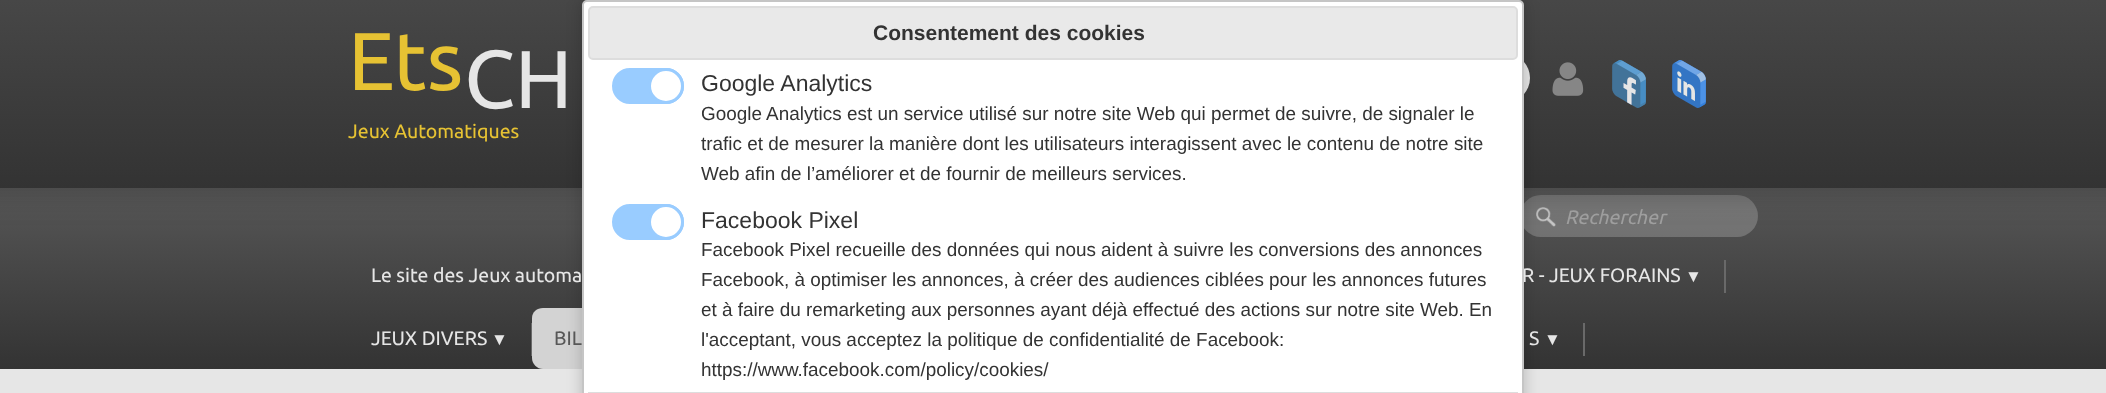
<?xml version="1.0" encoding="UTF-8"?>
<svg xmlns="http://www.w3.org/2000/svg" xmlns:xlink="http://www.w3.org/1999/xlink" width="2106" height="393">
  <defs>
    <linearGradient id="g1" gradientUnits="userSpaceOnUse" x1="1053" y1="187" x2="1053" y2="369"><stop offset="0" stop-color="#575757" /><stop offset="1" stop-color="#333333" /></linearGradient>
    <linearGradient id="g2" gradientUnits="userSpaceOnUse" x1="1053" y1="0" x2="1053" y2="188"><stop offset="0" stop-color="#474747" /><stop offset="1" stop-color="#333333" /></linearGradient>
  </defs>
  <rect width="100%" height="100%" fill="#e6e6e6" />
  <rect y="188" width="2106" height="181" fill="url(#g1)" />
  <rect x="1520" y="195" width="238" height="42" rx="21" fill="#e6e6e6" fill-opacity="0.24" />
  <image x="1536" y="207" width="20" height="20" xlink:href="image4.png" />
  <rect x="-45" y="3" width="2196" height="188" fill="#333333" fill-opacity="0.5" filter="blur(15px)" />
  <rect width="2106" height="188" fill="url(#g2)" />
  <rect x="1440" y="54" width="90" height="48" rx="24" fill="#e6e6e6" />
  <path d="M 543 308 h 123 c 5 0 9 4 9 10 v 40 c 0 6 -4 11 -9 11 h -123 c -6 0 -11 -5 -11 -11 v -40 c 0 -6 5 -10 11 -10 z" fill="#d3d3d3" />
  <rect x="582" width="942" height="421" rx="5" fill="#000000" fill-opacity="0.2" filter="blur(7.5px)" />
  <image x="1552" y="62" width="32" height="34" xlink:href="image1.png" />
  <image x="1612" y="60" width="34" height="48" xlink:href="image2.png" />
  <image x="1672" y="60" width="34" height="48" xlink:href="image3.png" />
  <rect x="1724" y="260" width="2" height="33" fill="#696969" />
  <rect x="531" y="323" width="1" height="33" fill="#696969" />
  <rect x="1583" y="323" width="2" height="33" fill="#696969" />
  <text x="348" y="90" style="font-family: Ubuntu; font-size: 82px; fill: #e6c233">Ets</text>
  <text x="464" y="108" style="font-family: Ubuntu; font-size: 82px; fill: #e6e6e6">CH</text>
  <text x="348" y="138" style="font-family: Ubuntu; font-size: 19.5px; fill: #e6c233">Jeux Automatiques</text>
  <text x="1565" y="224" style="font-family: Ubuntu; font-size: 19.5px; font-style: italic; fill: #9e9e9e">Rechercher</text>
  <text x="371" y="282" style="font-family: Ubuntu; font-size: 19.5px; fill: #e6e6e6">Le site des Jeux automa</text>
  <text x="1522" y="282" style="font-family: Ubuntu; font-size: 19.5px; fill: #e6e6e6">R - JEUX FORAINS</text>
  <rect x="583" y="1" width="940" height="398" rx="4" fill="#ffffff" stroke="#c5c5c5" stroke-width="2" />
  <rect x="613.5" y="205.5" width="69" height="33" rx="16.5" fill="#99ccff" stroke="#99ccff" stroke-width="3" />
  <circle cx="666" cy="222" r="16.5" fill="#ffffff" stroke="#99ccff" stroke-width="3" />
  <rect x="613.5" y="69.5" width="69" height="33" rx="16.5" fill="#99ccff" stroke="#99ccff" stroke-width="3" />
  <circle cx="666" cy="86" r="16.5" fill="#ffffff" stroke="#99ccff" stroke-width="3" />
  <text x="701" y="376" style="font-family: Liberation Sans; font-size: 18.9px; fill: #333333">https://www.facebook.com/policy/cookies/</text>
  <text x="701" y="346" style="font-family: Liberation Sans; font-size: 18.9px; fill: #333333">l'acceptant, vous acceptez la politique de confidentialité de Facebook:</text>
  <text x="701" y="316" style="font-family: Liberation Sans; font-size: 18.9px; fill: #333333">et à faire du remarketing aux personnes ayant déjà effectué des actions sur notre site Web. En</text>
  <text x="701" y="286" style="font-family: Liberation Sans; font-size: 18.9px; fill: #333333">Facebook, à optimiser les annonces, à créer des audiences ciblées pour les annonces futures</text>
  <text x="701" y="256" style="font-family: Liberation Sans; font-size: 18.9px; fill: #333333">Facebook Pixel recueille des données qui nous aident à suivre les conversions des annonces</text>
  <text x="701" y="228" style="font-family: Liberation Sans; font-size: 23px; fill: #333333">Facebook Pixel</text>
  <text x="701" y="180" style="font-family: Liberation Sans; font-size: 18.9px; fill: #333333">Web afin de l’améliorer et de fournir de meilleurs services.</text>
  <text x="701" y="150" style="font-family: Liberation Sans; font-size: 18.9px; fill: #333333">trafic et de mesurer la manière dont les utilisateurs interagissent avec le contenu de notre site</text>
  <text x="701" y="120" style="font-family: Liberation Sans; font-size: 18.9px; fill: #333333">Google Analytics est un service utilisé sur notre site Web qui permet de suivre, de signaler le</text>
  <text x="701" y="91" style="font-family: Liberation Sans; font-size: 23px; fill: #333333">Google Analytics</text>
  <rect x="589" y="7" width="928" height="52" rx="4" fill="#e9e9e9" stroke="#dddddd" stroke-width="2" />
  <text x="873" y="40" style="font-family: Liberation Sans; font-size: 21px; font-weight: bold; fill: #333333">Consentement des cookies</text>
  <rect x="588" y="392" width="930" height="1" fill="#dddddd" />
  <text x="1685" y="282" style="font-family: Liberation Sans; font-size: 17px; fill: #e6e6e6">▼</text>
  <text x="371" y="345" style="font-family: Ubuntu; font-size: 19.5px; fill: #e6e6e6">JEUX DIVERS</text>
  <text x="491" y="345" style="font-family: Liberation Sans; font-size: 17px; fill: #e6e6e6">▼</text>
  <text x="554" y="345" style="font-family: Ubuntu; font-size: 19.5px; fill: #575757">BIL</text>
  <text x="1529" y="345" style="font-family: Ubuntu; font-size: 19.5px; fill: #e6e6e6">S</text>
  <text x="1544" y="345" style="font-family: Liberation Sans; font-size: 17px; fill: #e6e6e6">▼</text>
</svg>
